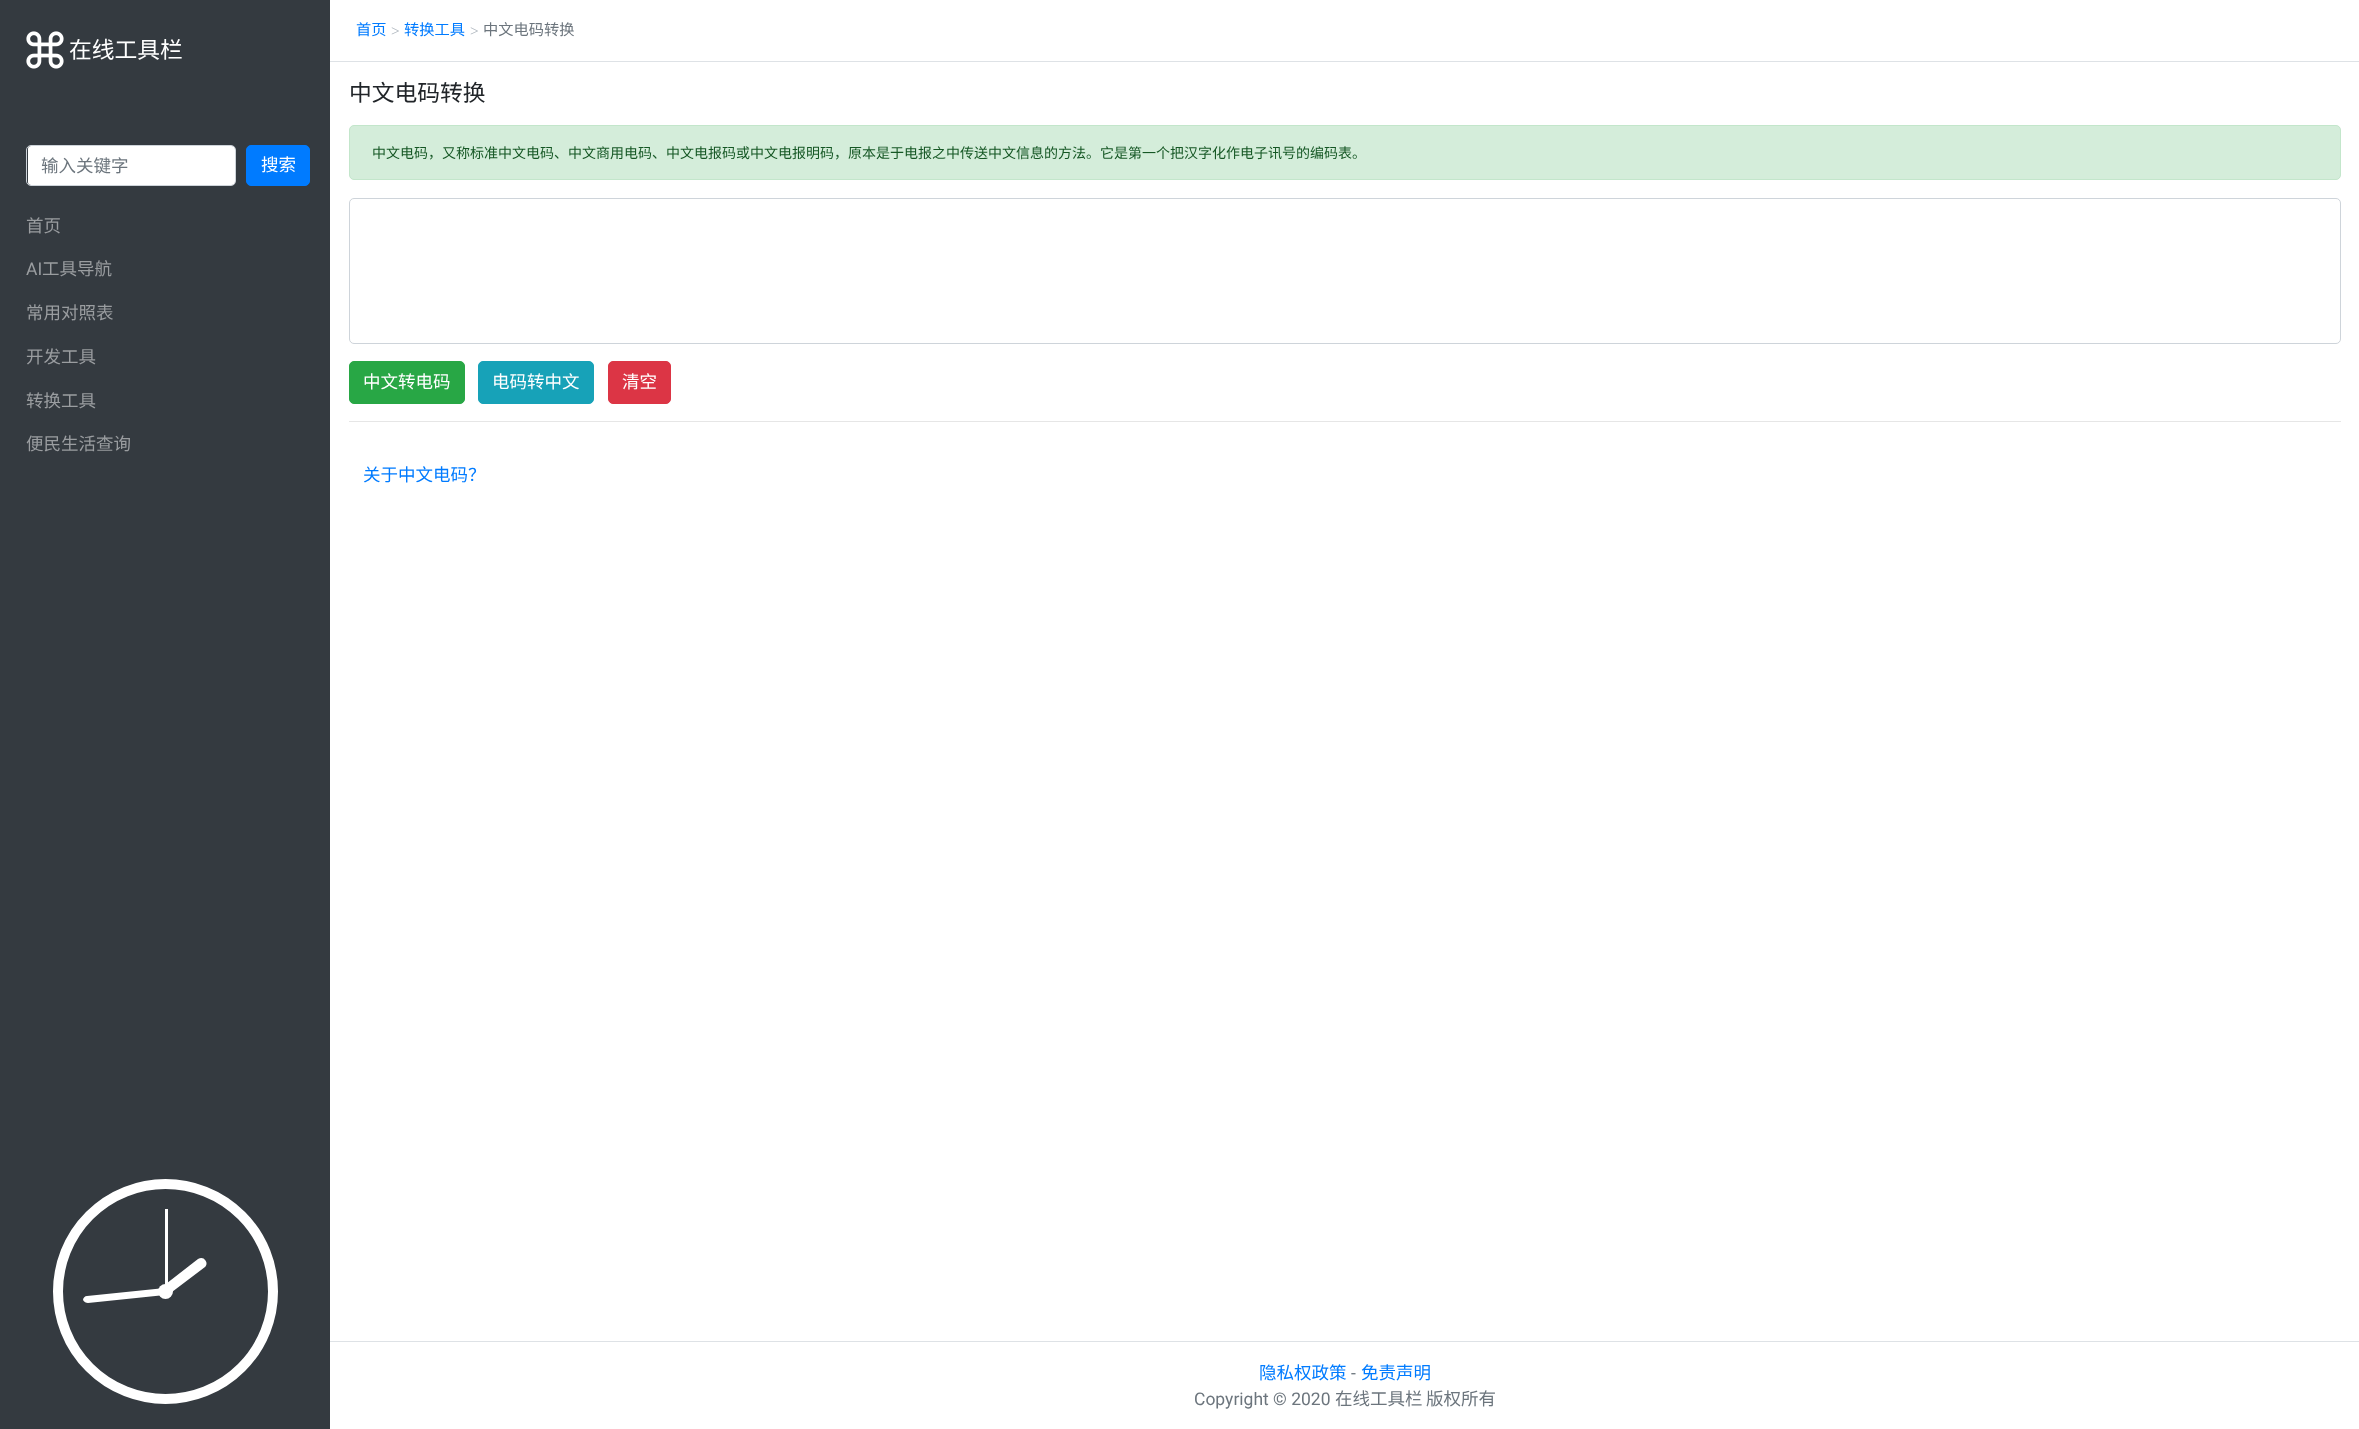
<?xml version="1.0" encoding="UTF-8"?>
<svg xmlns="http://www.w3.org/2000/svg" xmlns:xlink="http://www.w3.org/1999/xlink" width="2359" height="1429">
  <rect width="100%" height="100%" fill="#ffffff" />
  <rect width="330" height="1429" fill="#343a40" />
  <image x="26" y="31" width="38" height="38" xlink:href="image1.png" />
  <rect x="28" y="146" width="207" height="39" rx="3" fill="#ffffff" />
  <rect x="26.5" y="145.5" width="209" height="40" rx="4.5" fill="none" stroke="#ced4da" />
  <rect x="246.5" y="145.5" width="63" height="40" rx="4.5" fill="#007bff" stroke="#007bff" />
  <circle cx="165.5" cy="1291.5" r="107.5" fill="none" stroke="#ffffff" stroke-width="10" />
  <path d="M 205 1267 l -37 28 l -6 -8 l 36 -28 c 3 -2 6 -1 7 1 c 2 2 2 5 0 7 z" fill="#ffffff" />
  <rect x="165" y="1209" width="3" height="82" fill="#ffffff" />
  <path d="M 83 1300 c 0 -2 2 -4 4 -4 l 78 -8 v 7 l -77 8 c -2 0 -4 -1 -5 -3 z" fill="#ffffff" />
  <circle cx="165.5" cy="1291.5" r="7.5" fill="#ffffff" />
  <rect x="330" y="61" width="2029" height="1" fill="#dee2e6" />
  <rect x="349.5" y="125.5" width="1991" height="54" rx="4.5" fill="#d4edda" stroke="#c3e6cb" />
  <rect x="349.5" y="198.5" width="1991" height="145" rx="4.5" fill="none" stroke="#ced4da" />
  <rect x="349.5" y="361.5" width="115" height="42" rx="4.5" fill="#28a745" stroke="#28a745" />
  <rect x="478.5" y="361.5" width="115" height="42" rx="4.5" fill="#17a2b8" stroke="#17a2b8" />
  <rect x="608.5" y="361.5" width="62" height="42" rx="4.5" fill="#dc3545" stroke="#dc3545" />
  <rect x="349" y="421" width="1992" height="1" fill="#e6e6e6" />
  <rect x="330" y="1341" width="2029" height="1" fill="#dee2e6" />
  <text x="69" y="58" style="font-family: Noto Sans CJK SC; font-size: 22.75px; fill: #ffffff">在线工具栏</text>
  <text x="41" y="172" style="font-family: Noto Sans CJK SC; font-size: 17.5px; fill: #6c757d">输入关键字</text>
  <text x="261" y="171" style="font-family: Noto Sans CJK SC; font-size: 17.5px; fill: #ffffff">搜索</text>
  <text x="26" y="232" style="font-family: Noto Sans CJK SC; font-size: 17.5px; fill: #9a9da0">首页</text>
  <text x="26" y="275" style="font-family: Roboto; font-size: 17.5px; fill: #9a9da0">AI</text>
  <text x="42" y="275" style="font-family: Noto Sans CJK SC; font-size: 17.5px; fill: #9a9da0">工具导航</text>
  <text x="26" y="319" style="font-family: Noto Sans CJK SC; font-size: 17.5px; fill: #9a9da0">常用对照表</text>
  <text x="26" y="363" style="font-family: Noto Sans CJK SC; font-size: 17.5px; fill: #9a9da0">开发工具</text>
  <text x="26" y="407" style="font-family: Noto Sans CJK SC; font-size: 17.5px; fill: #9a9da0">转换工具</text>
  <text x="26" y="450" style="font-family: Noto Sans CJK SC; font-size: 17.5px; fill: #9a9da0">便民生活查询</text>
  <text x="356" y="35" style="font-family: Noto Sans CJK SC; font-size: 15.25px; fill: #007bff">首页</text>
  <text x="391" y="36" style="font-family: Liberation Serif; font-size: 15.25px; fill: #adb5bd">&gt;</text>
  <text x="404" y="35" style="font-family: Noto Sans CJK SC; font-size: 15.25px; fill: #007bff">转换工具</text>
  <text x="470" y="36" style="font-family: Liberation Serif; font-size: 15.25px; fill: #adb5bd">&gt;</text>
  <text x="483" y="35" style="font-family: Noto Sans CJK SC; font-size: 15.25px; fill: #6c757d">中文电码转换</text>
  <text x="349" y="101" style="font-family: Noto Sans CJK SC; font-size: 22.75px; fill: #212529">中文电码转换</text>
  <text x="372" y="158" style="font-family: Noto Sans CJK SC; font-size: 14px; fill: #155724">中文电码，又称标准中文电码、中文商用电码、中文电报码或中文电报明码，原本是于电报之中传送中文信息的方法。它是第一个把汉字化作电子讯号的编码表。</text>
  <text x="363" y="388" style="font-family: Noto Sans CJK SC; font-size: 17.5px; fill: #ffffff">中文转电码</text>
  <text x="492" y="388" style="font-family: Noto Sans CJK SC; font-size: 17.5px; fill: #ffffff">电码转中文</text>
  <text x="622" y="388" style="font-family: Noto Sans CJK SC; font-size: 17.5px; fill: #ffffff">清空</text>
  <text x="363" y="481" style="font-family: Noto Sans CJK SC; font-size: 17.5px; fill: #007bff">关于中文电码？</text>
  <text x="1259" y="1379" style="font-family: Noto Sans CJK SC; font-size: 17.5px; fill: #007bff">隐私权政策</text>
  <text x="1351" y="1379" style="font-family: Roboto; font-size: 17.5px; fill: #6c757d">-</text>
  <text x="1361" y="1379" style="font-family: Noto Sans CJK SC; font-size: 17.5px; fill: #007bff">免责声明</text>
  <text x="1194" y="1405" style="font-family: Roboto; font-size: 17.5px; fill: #6c757d">Copyright © 2020</text>
  <text x="1335" y="1405" style="font-family: Noto Sans CJK SC; font-size: 17.5px; fill: #6c757d">在线工具栏</text>
  <text x="1426" y="1405" style="font-family: Noto Sans CJK SC; font-size: 17.5px; fill: #6c757d">版权所有</text>
</svg>
